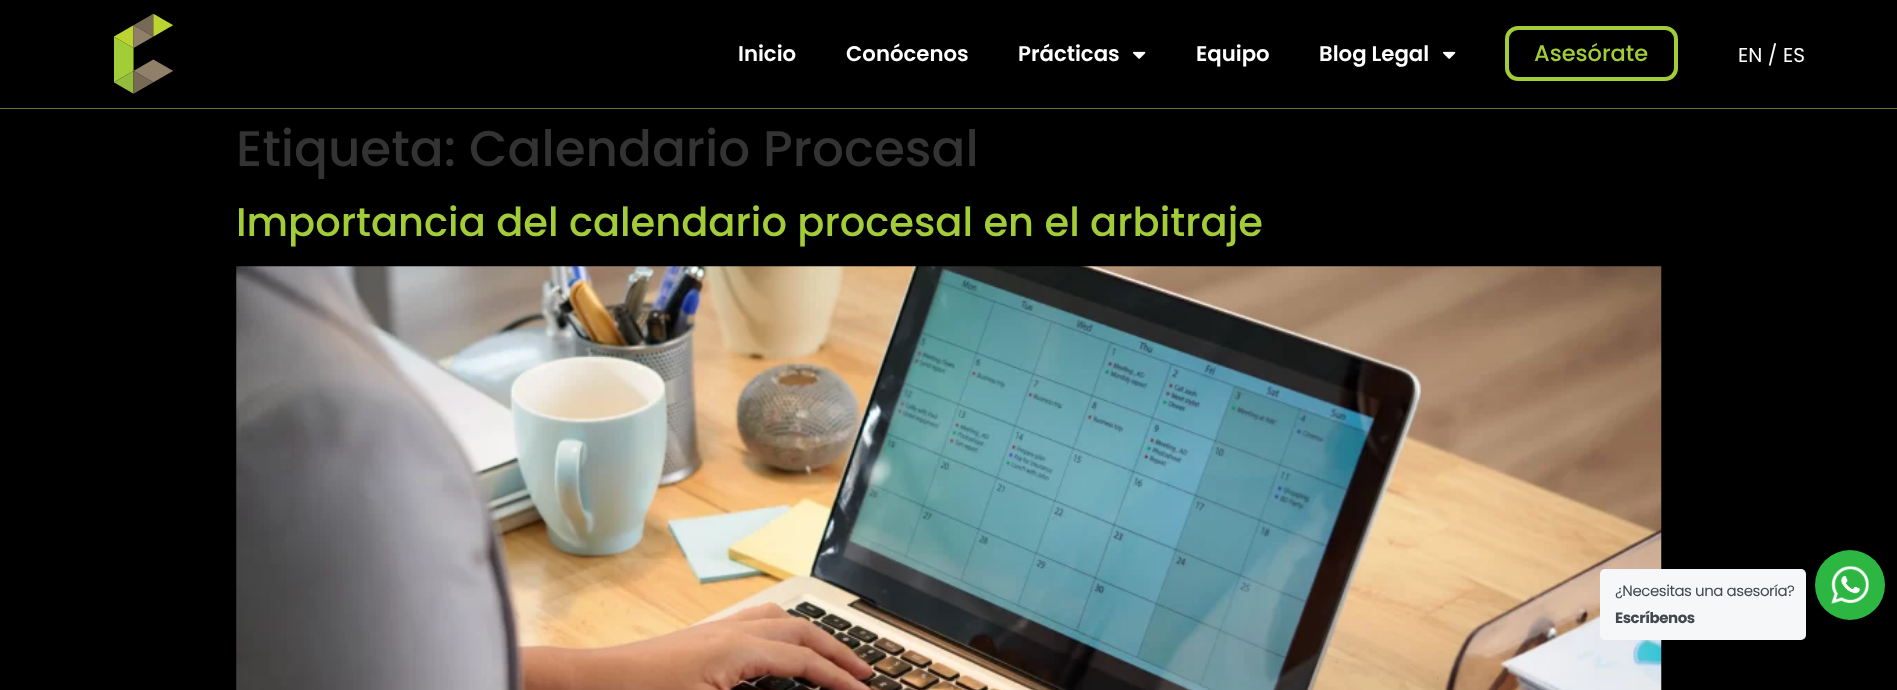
<?xml version="1.0" encoding="UTF-8"?>
<svg xmlns="http://www.w3.org/2000/svg" xmlns:xlink="http://www.w3.org/1999/xlink" width="1897" height="690">
  <rect width="100%" height="100%" fill="#000000" />
  <rect y="108" width="1897" height="1" fill="#5d7420" />
  <image x="114" y="14" width="59" height="80" xlink:href="image1.png" />
  <image x="1133" y="51" width="13" height="8" xlink:href="image2.png" />
  <image x="1443" y="51" width="13" height="8" xlink:href="image2.png" />
  <rect x="1507" y="28" width="169" height="51" rx="11" fill="none" stroke="#a3cc39" stroke-width="4" />
  <image x="236" y="266" width="1426" height="424" xlink:href="image3.png" />
  <rect x="1600" y="569" width="206" height="71" rx="5" fill="#f5f7f9" />
  <circle cx="1850" cy="585" r="35" fill="#2db742" />
  <image x="1831" y="566" width="38" height="38" xlink:href="image4.png" />
  <text x="738" y="61" style="font-family: Poppins; font-size: 21.25px; font-weight: 600; fill: #ffffff">Inicio</text>
  <text x="846" y="61" style="font-family: Poppins; font-size: 21.25px; font-weight: 600; fill: #ffffff">Conócenos</text>
  <text x="1018" y="61" style="font-family: Poppins; font-size: 21.25px; font-weight: 600; fill: #ffffff">Prácticas</text>
  <text x="1196" y="61" style="font-family: Poppins; font-size: 21.25px; font-weight: 600; fill: #ffffff">Equipo</text>
  <text x="1319" y="61" style="font-family: Poppins; font-size: 21.25px; font-weight: 600; fill: #ffffff">Blog Legal</text>
  <text x="1534" y="61" style="font-family: Poppins; font-size: 22.5px; font-weight: 500; fill: #a3cc39">Asesórate</text>
  <text x="1738" y="62" style="font-family: Poppins; font-size: 20px; fill: #ffffff">EN /</text>
  <text x="1783" y="62" style="font-family: Poppins; font-size: 20px; fill: #ffffff">ES</text>
  <text x="236" y="166" style="font-family: Poppins; font-size: 50px; font-weight: 500; fill: #333333">Etiqueta: Calendario Procesal</text>
  <text x="236" y="236" style="font-family: Poppins; font-size: 40px; font-weight: 500; fill: #a3cc39">Importancia del calendario procesal en el arbitraje</text>
  <text x="1615" y="596" style="font-family: Poppins; font-size: 15px; letter-spacing: -0.45px; fill: #43474e">¿Necesitas una asesoría?</text>
  <text x="1615" y="623" style="font-family: Poppins; font-size: 15px; font-weight: bold; letter-spacing: -0.45px; fill: #43474e">Escríbenos</text>
</svg>
